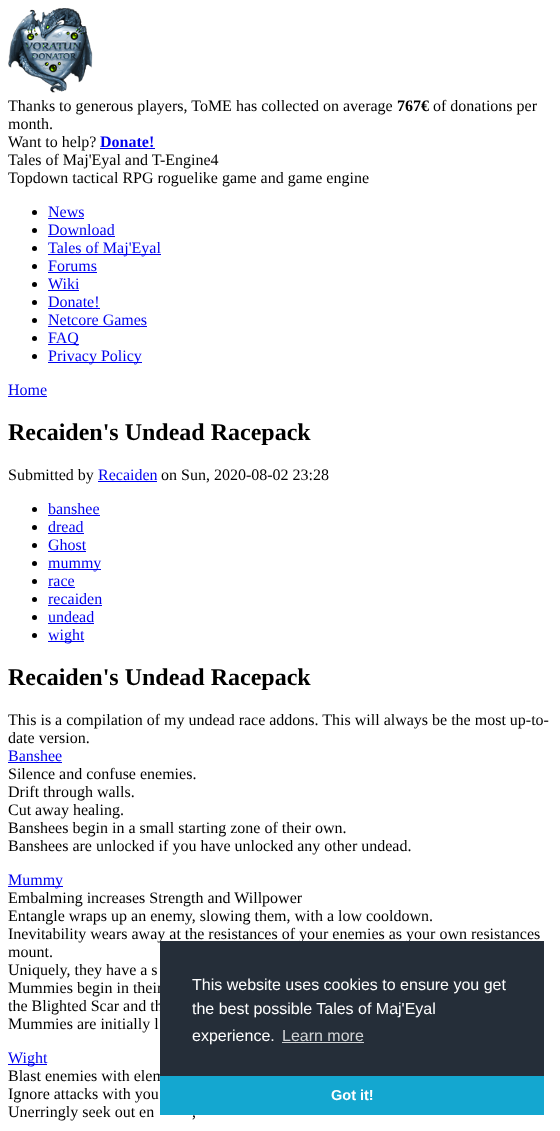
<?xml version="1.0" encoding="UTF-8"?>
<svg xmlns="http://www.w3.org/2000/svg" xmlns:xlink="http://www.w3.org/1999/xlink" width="560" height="1131">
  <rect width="100%" height="100%" fill="#ffffff" />
  <image x="8" y="8" width="85" height="85" xlink:href="image1.png" />
  <rect x="100" y="148" width="55" height="1" fill="#0000ee" />
  <circle cx="34.5" cy="212.5" r="2.5" fill="#000000" />
  <rect x="48" y="218" width="36" height="1" fill="#0000ee" />
  <circle cx="34.5" cy="230.5" r="2.5" fill="#000000" />
  <rect x="48" y="236" width="67" height="1" fill="#0000ee" />
  <circle cx="34.5" cy="248.5" r="2.5" fill="#000000" />
  <rect x="48" y="254" width="113" height="1" fill="#0000ee" />
  <circle cx="34.5" cy="266.5" r="2.5" fill="#000000" />
  <rect x="48" y="272" width="49" height="1" fill="#0000ee" />
  <circle cx="34.5" cy="284.5" r="2.5" fill="#000000" />
  <rect x="48" y="290" width="31" height="1" fill="#0000ee" />
  <circle cx="34.5" cy="302.5" r="2.5" fill="#000000" />
  <rect x="48" y="308" width="52" height="1" fill="#0000ee" />
  <circle cx="34.5" cy="320.5" r="2.5" fill="#000000" />
  <rect x="48" y="326" width="99" height="1" fill="#0000ee" />
  <circle cx="34.5" cy="338.5" r="2.5" fill="#000000" />
  <rect x="48" y="344" width="31" height="1" fill="#0000ee" />
  <circle cx="34.5" cy="356.5" r="2.5" fill="#000000" />
  <rect x="48" y="362" width="94" height="1" fill="#0000ee" />
  <rect x="8" y="396" width="39" height="1" fill="#0000ee" />
  <rect x="98" y="481" width="59" height="1" fill="#0000ee" />
  <circle cx="34.5" cy="509.5" r="2.5" fill="#000000" />
  <rect x="48" y="515" width="52" height="1" fill="#0000ee" />
  <circle cx="34.5" cy="527.5" r="2.5" fill="#000000" />
  <rect x="48" y="533" width="36" height="1" fill="#0000ee" />
  <circle cx="34.5" cy="545.5" r="2.5" fill="#000000" />
  <rect x="48" y="551" width="38" height="1" fill="#0000ee" />
  <circle cx="34.5" cy="563.5" r="2.5" fill="#000000" />
  <rect x="48" y="569" width="53" height="1" fill="#0000ee" />
  <circle cx="34.5" cy="581.5" r="2.5" fill="#000000" />
  <rect x="48" y="587" width="27" height="1" fill="#0000ee" />
  <circle cx="34.5" cy="599.5" r="2.5" fill="#000000" />
  <rect x="48" y="605" width="54" height="1" fill="#0000ee" />
  <circle cx="34.5" cy="617.5" r="2.5" fill="#000000" />
  <rect x="48" y="623" width="46" height="1" fill="#0000ee" />
  <circle cx="34.5" cy="635.5" r="2.5" fill="#000000" />
  <rect x="48" y="641" width="36" height="1" fill="#0000ee" />
  <rect x="8" y="762" width="54" height="1" fill="#0000ee" />
  <rect x="8" y="886" width="55" height="1" fill="#0000ee" />
  <rect x="8" y="1064" width="39" height="1" fill="#0000ee" />
  <text x="8" y="111" style="font-family: Liberation Serif; font-size: 16px; fill: #000000">Thanks to generous players, ToME has collected on average</text>
  <text x="397" y="111" style="font-family: Liberation Serif; font-size: 16px; font-weight: bold; fill: #000000">767€</text>
  <text x="433" y="111" style="font-family: Liberation Serif; font-size: 16px; fill: #000000">of donations per</text>
  <text x="8" y="129" style="font-family: Liberation Serif; font-size: 16px; fill: #000000">month.</text>
  <text x="8" y="147" style="font-family: Liberation Serif; font-size: 16px; fill: #000000">Want to help?</text>
  <text x="100" y="147" style="font-family: Liberation Serif; font-size: 16px; font-weight: bold; fill: #0000ee">Donate!</text>
  <text x="8" y="165" style="font-family: Liberation Serif; font-size: 16px; fill: #000000">Tales of Maj'Eyal and T-Engine4</text>
  <text x="8" y="183" style="font-family: Liberation Serif; font-size: 16px; fill: #000000">Topdown tactical RPG roguelike game and game engine</text>
  <text x="48" y="217" style="font-family: Liberation Serif; font-size: 16px; fill: #0000ee">News</text>
  <text x="48" y="235" style="font-family: Liberation Serif; font-size: 16px; fill: #0000ee">Download</text>
  <text x="48" y="253" style="font-family: Liberation Serif; font-size: 16px; fill: #0000ee">Tales of Maj'Eyal</text>
  <text x="48" y="271" style="font-family: Liberation Serif; font-size: 16px; fill: #0000ee">Forums</text>
  <text x="48" y="289" style="font-family: Liberation Serif; font-size: 16px; fill: #0000ee">Wiki</text>
  <text x="48" y="307" style="font-family: Liberation Serif; font-size: 16px; fill: #0000ee">Donate!</text>
  <text x="48" y="325" style="font-family: Liberation Serif; font-size: 16px; fill: #0000ee">Netcore Games</text>
  <text x="48" y="343" style="font-family: Liberation Serif; font-size: 16px; fill: #0000ee">FAQ</text>
  <text x="48" y="361" style="font-family: Liberation Serif; font-size: 16px; fill: #0000ee">Privacy Policy</text>
  <text x="8" y="395" style="font-family: Liberation Serif; font-size: 16px; fill: #0000ee">Home</text>
  <text x="8" y="440" style="font-family: Liberation Serif; font-size: 24px; font-weight: bold; fill: #000000">Recaiden's Undead Racepack</text>
  <text x="8" y="480" style="font-family: Liberation Serif; font-size: 16px; fill: #000000">Submitted by</text>
  <text x="98" y="480" style="font-family: Liberation Serif; font-size: 16px; fill: #0000ee">Recaiden</text>
  <text x="161" y="480" style="font-family: Liberation Serif; font-size: 16px; fill: #000000">on Sun, 2020-08-02 23:28</text>
  <text x="48" y="514" style="font-family: Liberation Serif; font-size: 16px; fill: #0000ee">banshee</text>
  <text x="48" y="532" style="font-family: Liberation Serif; font-size: 16px; fill: #0000ee">dread</text>
  <text x="48" y="550" style="font-family: Liberation Serif; font-size: 16px; fill: #0000ee">Ghost</text>
  <text x="48" y="568" style="font-family: Liberation Serif; font-size: 16px; fill: #0000ee">mummy</text>
  <text x="48" y="586" style="font-family: Liberation Serif; font-size: 16px; fill: #0000ee">race</text>
  <text x="48" y="604" style="font-family: Liberation Serif; font-size: 16px; fill: #0000ee">recaiden</text>
  <text x="48" y="622" style="font-family: Liberation Serif; font-size: 16px; fill: #0000ee">undead</text>
  <text x="48" y="640" style="font-family: Liberation Serif; font-size: 16px; fill: #0000ee">wight</text>
  <text x="8" y="685" style="font-family: Liberation Serif; font-size: 24px; font-weight: bold; fill: #000000">Recaiden's Undead Racepack</text>
  <text x="8" y="725" style="font-family: Liberation Serif; font-size: 16px; fill: #000000">This is a compilation of my undead race addons. This will always be the most up-to-</text>
  <text x="8" y="743" style="font-family: Liberation Serif; font-size: 16px; fill: #000000">date version.</text>
  <text x="8" y="761" style="font-family: Liberation Serif; font-size: 16px; fill: #0000ee">Banshee</text>
  <text x="8" y="779" style="font-family: Liberation Serif; font-size: 16px; fill: #000000">Silence and confuse enemies.</text>
  <text x="8" y="797" style="font-family: Liberation Serif; font-size: 16px; fill: #000000">Drift through walls.</text>
  <text x="8" y="815" style="font-family: Liberation Serif; font-size: 16px; fill: #000000">Cut away healing.</text>
  <text x="8" y="833" style="font-family: Liberation Serif; font-size: 16px; fill: #000000">Banshees begin in a small starting zone of their own.</text>
  <text x="8" y="851" style="font-family: Liberation Serif; font-size: 16px; fill: #000000">Banshees are unlocked if you have unlocked any other undead.</text>
  <text x="8" y="885" style="font-family: Liberation Serif; font-size: 16px; fill: #0000ee">Mummy</text>
  <text x="8" y="903" style="font-family: Liberation Serif; font-size: 16px; fill: #000000">Embalming increases Strength and Willpower</text>
  <text x="8" y="921" style="font-family: Liberation Serif; font-size: 16px; fill: #000000">Entangle wraps up an enemy, slowing them, with a low cooldown.</text>
  <text x="8" y="939" style="font-family: Liberation Serif; font-size: 16px; fill: #000000">Inevitability wears away at the resistances of your enemies as your own resistances</text>
  <text x="8" y="957" style="font-family: Liberation Serif; font-size: 16px; fill: #000000">mount.</text>
  <text x="8" y="975" style="font-family: Liberation Serif; font-size: 16px; fill: #000000">Uniquely, they have a s</text>
  <text x="8" y="993" style="font-family: Liberation Serif; font-size: 16px; fill: #000000">Mummies begin in their</text>
  <text x="8" y="1011" style="font-family: Liberation Serif; font-size: 16px; fill: #000000">the Blighted Scar and th</text>
  <text x="8" y="1029" style="font-family: Liberation Serif; font-size: 16px; fill: #000000">Mummies are initially l</text>
  <text x="8" y="1063" style="font-family: Liberation Serif; font-size: 16px; fill: #0000ee">Wight</text>
  <text x="8" y="1081" style="font-family: Liberation Serif; font-size: 16px; fill: #000000">Blast enemies with elem</text>
  <text x="8" y="1099" style="font-family: Liberation Serif; font-size: 16px; fill: #000000">Ignore attacks with you</text>
  <text x="8" y="1117" style="font-family: Liberation Serif; font-size: 16px; fill: #000000">Unerringly seek out en</text>
  <text x="192" y="1117" style="font-family: Liberation Serif; font-size: 16px; fill: #000000">,</text>
  <rect x="160" y="941" width="384" height="135" fill="#252e39" />
  <text x="192" y="990" style="font-family: Liberation Sans; font-size: 16px; fill: #ffffff">This website uses cookies to ensure you get</text>
  <text x="192" y="1014" style="font-family: Liberation Sans; font-size: 16px; fill: #ffffff">the best possible Tales of Maj'Eyal</text>
  <text x="192" y="1041" style="font-family: Liberation Sans; font-size: 16px; fill: #ffffff">experience.</text>
  <text x="282" y="1041" style="font-family: Liberation Sans; font-size: 16px; fill: #d3d5d7">Learn more</text>
  <rect x="282" y="1042" width="82" height="1" fill="#d3d5d7" />
  <rect x="160" y="1076" width="384" height="39" fill="#14a7d0" />
  <text x="331" y="1100" style="font-family: Liberation Sans; font-size: 14.5px; font-weight: bold; fill: #ffffff">Got it!</text>
</svg>
